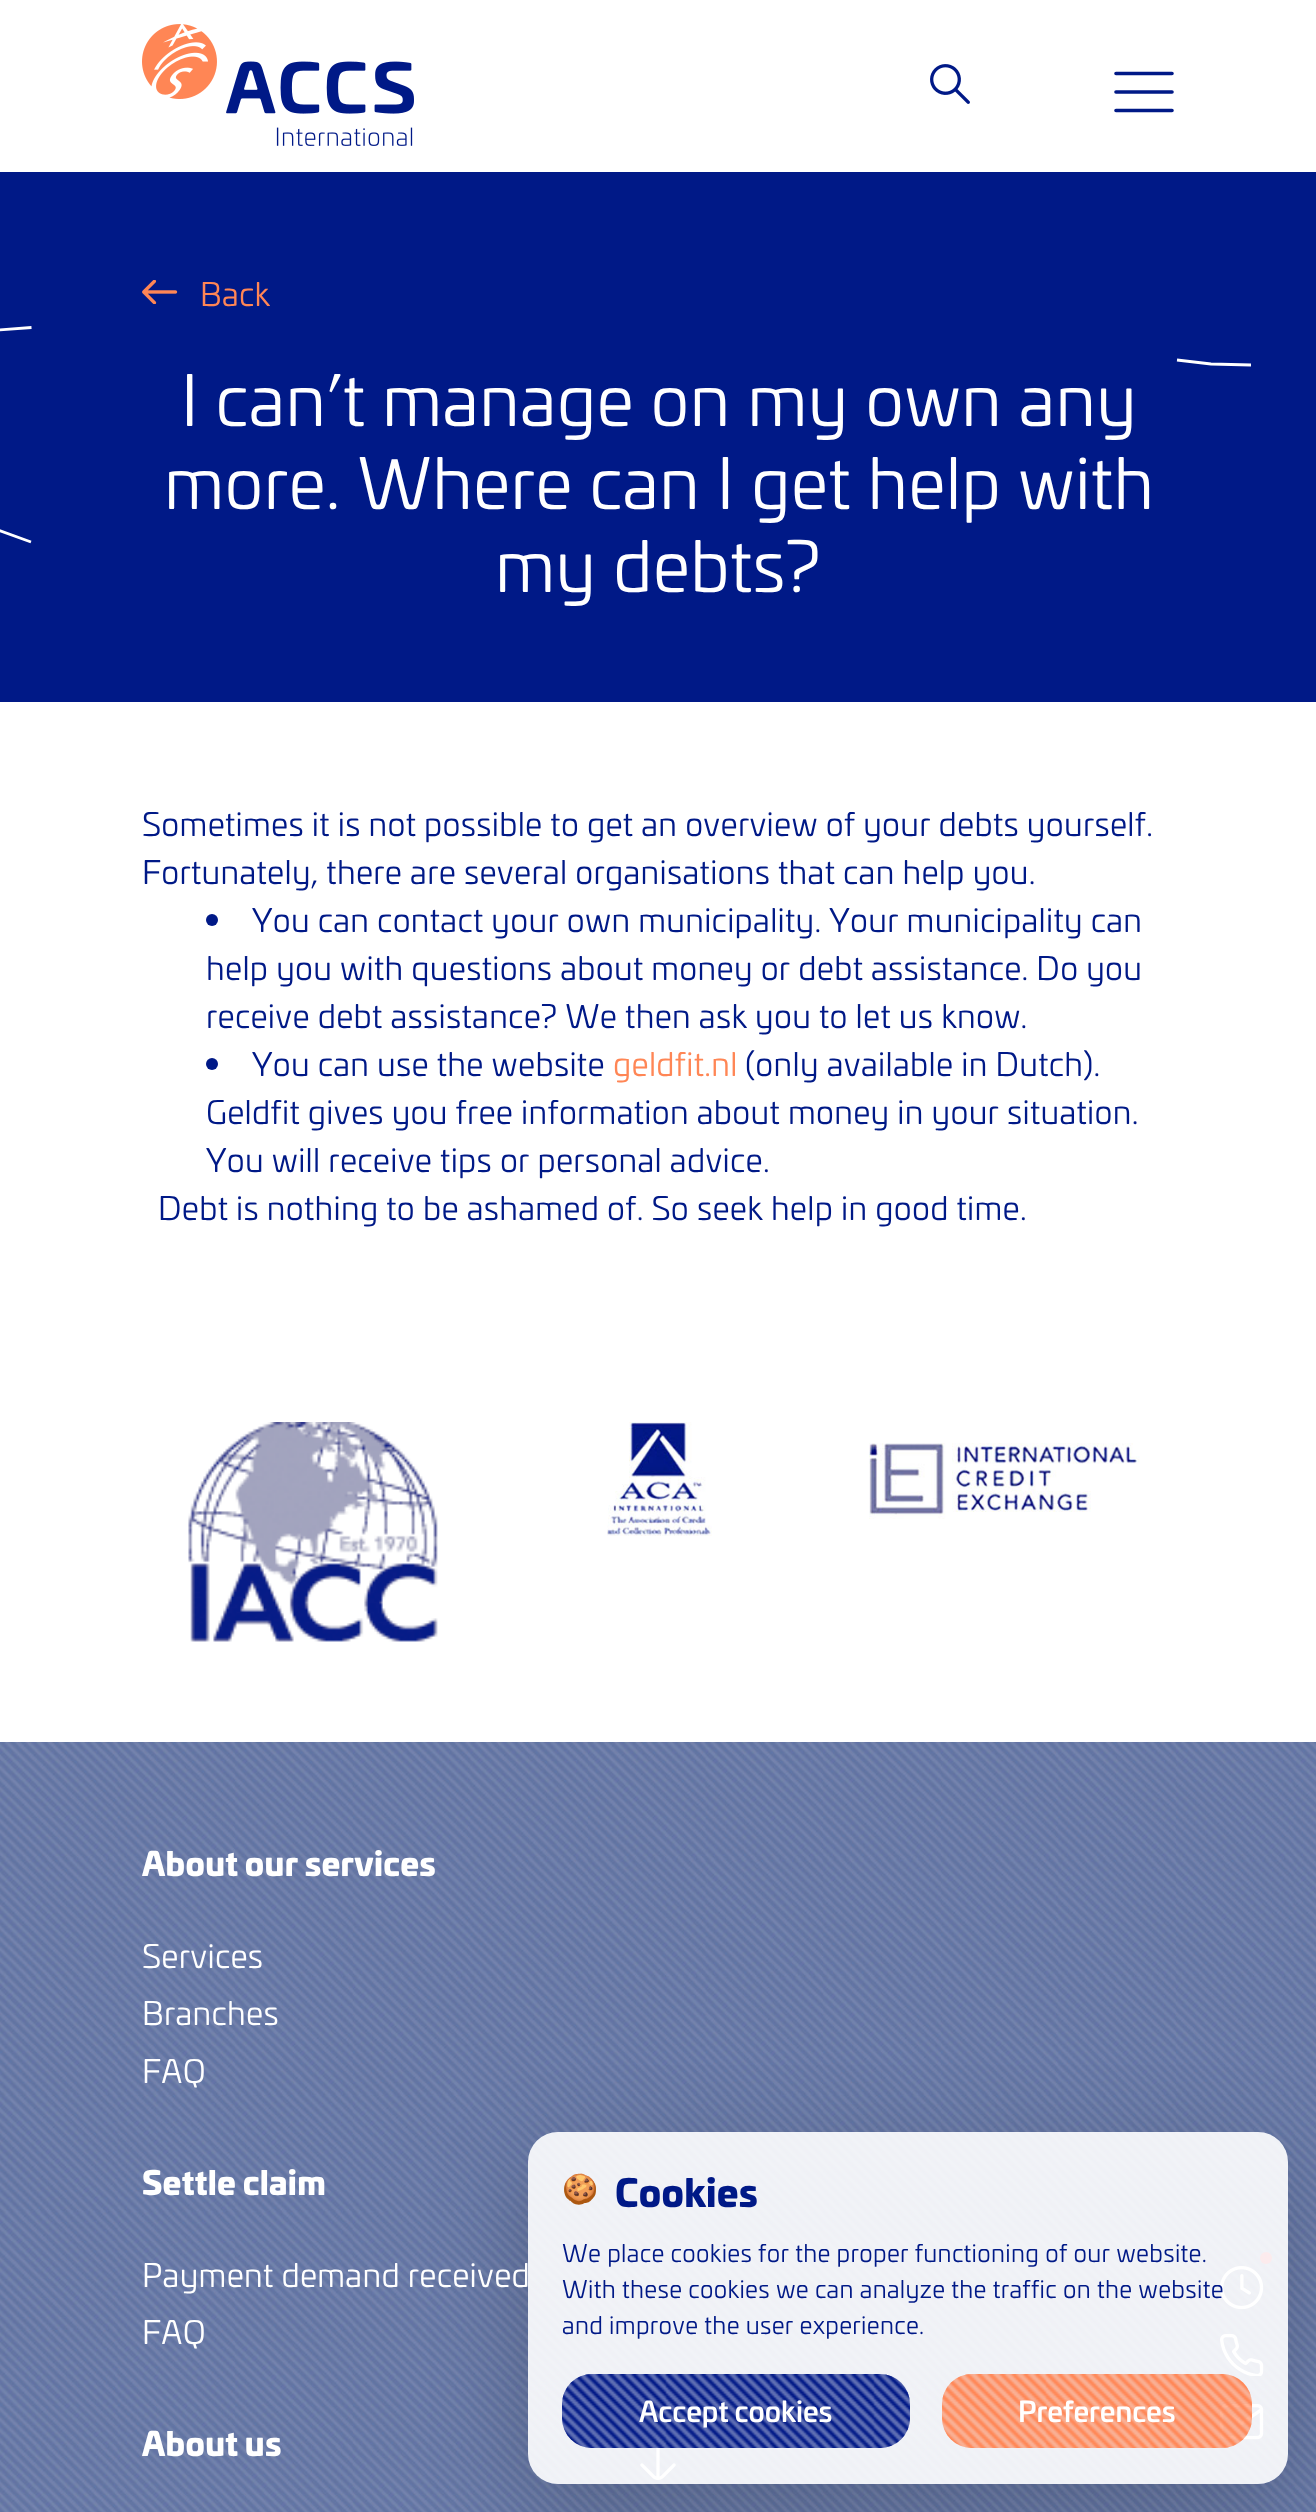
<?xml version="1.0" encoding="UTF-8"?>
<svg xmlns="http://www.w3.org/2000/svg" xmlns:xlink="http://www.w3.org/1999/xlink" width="1316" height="2512">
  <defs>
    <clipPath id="clip1"><path d="M 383 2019 h 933 v 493 h -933 z m 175 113 h 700 c 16.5 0 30 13.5 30 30 v 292 c 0 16.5 -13.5 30 -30 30 h -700 c -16.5 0 -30 -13.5 -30 -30 v -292 c 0 -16.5 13.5 -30 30 -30 z" clip-rule="evenodd" /></clipPath>
  </defs>
  <rect width="100%" height="100%" fill="#001987" />
  <rect width="1316" height="172" fill="#ffffff" />
  <image x="142" y="24" width="272" height="122" xlink:href="image1.png" />
  <image x="930" y="64" width="40" height="40" xlink:href="image2.png" />
  <path d="M 1116 73.5 h 56 m -56 18.5 h 56 m -56 18.5 h 56" fill="none" stroke="#001987" stroke-width="3.6" stroke-linecap="round" />
  <image x="142" y="280" width="36" height="24" xlink:href="image3.png" />
  <path d="M -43 322 l 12 3.5 c 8 3 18.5 5 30.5 4.5 l 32 -2.5" fill="none" stroke="#ffffff" stroke-width="2.8" />
  <path d="M 1177 360 l 34 4 l 40 1" fill="none" stroke="#ffffff" stroke-width="2.8" />
  <path d="M -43 538.5 l 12.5 -7 c 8 -4 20 -4.5 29.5 -1 l 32 11.5" fill="none" stroke="#ffffff" stroke-width="2.8" />
  <rect y="702" width="1316" height="1040" fill="#ffffff" />
  <circle cx="212" cy="920" r="6" fill="#001987" />
  <circle cx="212" cy="1064" r="6" fill="#001987" />
  <image x="188" y="1422" width="250" height="220" xlink:href="image4.png" />
  <image x="607" y="1422" width="105" height="114" xlink:href="image5.png" />
  <image x="869" y="1443" width="271" height="76" xlink:href="image6.png" />
  <image x="0" y="1742" width="1316" height="770" xlink:href="image7.png" />
  <circle cx="1266" cy="2258" r="6" fill="#dc3545" />
  <image x="1220" y="2266" width="44" height="44" xlink:href="image10.png" />
  <image x="1220" y="2334" width="44" height="42" xlink:href="image11.png" />
  <image x="1220" y="2404" width="44" height="36" xlink:href="image12.png" />
  <image x="640" y="2434" width="36" height="46" xlink:href="image13.png" />
  <g clip-path="url(#clip1)">
    <rect x="528" y="2164" width="760" height="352" rx="30" fill="#000000" fill-opacity="0.18" filter="blur(48px)" />
  </g>
  <rect x="528" y="2132" width="760" height="352" rx="30" fill="#ffffff" fill-opacity="0.9" />
  <rect x="562" y="2374" width="348" height="74" rx="30" fill="#001987" fill-opacity="0.6" />
  <image x="562" y="2374" width="348" height="74" xlink:href="image8.png" />
  <rect x="942" y="2374" width="310" height="74" rx="30" fill="#ff8655" fill-opacity="0.6" />
  <image x="942" y="2374" width="310" height="74" xlink:href="image9.png" />
  <text x="200" y="306" style="font-family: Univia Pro; font-size: 32px; letter-spacing: 0.32px; fill: #ff8655">Back</text>
  <text x="181" y="426" style="font-family: Univia Pro; font-size: 69.5px; letter-spacing: 0.32px; fill: #ffffff">I can’t manage on my own any</text>
  <text x="164" y="509" style="font-family: Univia Pro; font-size: 69.5px; letter-spacing: 0.32px; fill: #ffffff">more. Where can I get help with</text>
  <text x="495" y="592" style="font-family: Univia Pro; font-size: 69.5px; letter-spacing: 0.32px; fill: #ffffff">my debts?</text>
  <text x="142" y="836" style="font-family: Univia Pro; font-size: 32px; letter-spacing: 0.32px; fill: #001987">Sometimes it is not possible to get an overview of your debts yourself.</text>
  <text x="142" y="884" style="font-family: Univia Pro; font-size: 32px; letter-spacing: 0.32px; fill: #001987">Fortunately, there are several organisations that can help you.</text>
  <text x="252" y="932" style="font-family: Univia Pro; font-size: 32px; letter-spacing: 0.32px; fill: #001987">You can contact your own municipality. Your municipality can</text>
  <text x="206" y="980" style="font-family: Univia Pro; font-size: 32px; letter-spacing: 0.32px; fill: #001987">help you with questions about money or debt assistance. Do you</text>
  <text x="206" y="1028" style="font-family: Univia Pro; font-size: 32px; letter-spacing: 0.32px; fill: #001987">receive debt assistance? We then ask you to let us know.</text>
  <text x="252" y="1076" style="font-family: Univia Pro; font-size: 32px; letter-spacing: 0.32px; fill: #001987">You can use the website</text>
  <text x="613" y="1076" style="font-family: Univia Pro; font-size: 32px; letter-spacing: 0.32px; fill: #ff8655">geldfit.nl</text>
  <text x="745" y="1076" style="font-family: Univia Pro; font-size: 32px; letter-spacing: 0.32px; fill: #001987">(only available in Dutch).</text>
  <text x="206" y="1124" style="font-family: Univia Pro; font-size: 32px; letter-spacing: 0.32px; fill: #001987">Geldfit gives you free information about money in your situation.</text>
  <text x="206" y="1172" style="font-family: Univia Pro; font-size: 32px; letter-spacing: 0.32px; fill: #001987">You will receive tips or personal advice.</text>
  <text x="158" y="1220" style="font-family: Univia Pro; font-size: 32px; letter-spacing: 0.32px; fill: #001987">Debt is nothing to be ashamed of. So seek help in good time.</text>
  <text x="142" y="1876" style="font-family: Univia Pro; font-size: 32px; font-weight: 900; letter-spacing: 0.32px; fill: #ffffff">About our services</text>
  <text x="142" y="1968" style="font-family: Univia Pro; font-size: 32px; letter-spacing: 0.32px; fill: #ffffff">Services</text>
  <text x="142" y="2025" style="font-family: Univia Pro; font-size: 32px; letter-spacing: 0.32px; fill: #ffffff">Branches</text>
  <text x="142" y="2083" style="font-family: Univia Pro; font-size: 32px; letter-spacing: 0.32px; fill: #ffffff">FAQ</text>
  <text x="142" y="2195" style="font-family: Univia Pro; font-size: 32px; font-weight: 900; letter-spacing: 0.32px; fill: #ffffff">Settle claim</text>
  <text x="142" y="2287" style="font-family: Univia Pro; font-size: 32px; letter-spacing: 0.32px; fill: #ffffff">Payment demand received</text>
  <text x="142" y="2344" style="font-family: Univia Pro; font-size: 32px; letter-spacing: 0.32px; fill: #ffffff">FAQ</text>
  <text x="142" y="2456" style="font-family: Univia Pro; font-size: 32px; font-weight: 900; letter-spacing: 0.32px; fill: #ffffff">About us</text>
  <text x="562" y="2199" style="font-family: Noto Color Emoji; font-size: 29px; letter-spacing: 0.32px; fill: #001987">🍪</text>
  <text x="615" y="2207" style="font-family: Univia Pro; font-size: 37px; font-weight: 900; letter-spacing: 0.32px; fill: #001987">Cookies</text>
  <text x="562" y="2262" style="font-family: Univia Pro; font-size: 24px; letter-spacing: 0.32px; fill: #001987">We place cookies for the proper functioning of our website.</text>
  <text x="562" y="2298" style="font-family: Univia Pro; font-size: 24px; letter-spacing: 0.32px; fill: #001987">With these cookies we can analyze the traffic on the website</text>
  <text x="562" y="2334" style="font-family: Univia Pro; font-size: 24px; letter-spacing: 0.32px; fill: #001987">and improve the user experience.</text>
  <text x="639" y="2422" style="font-family: Univia Pro; font-size: 28px; font-weight: 500; fill: #ffffff">Accept cookies</text>
  <text x="1018" y="2422" style="font-family: Univia Pro; font-size: 28px; font-weight: 500; fill: #ffffff">Preferences</text>
</svg>
